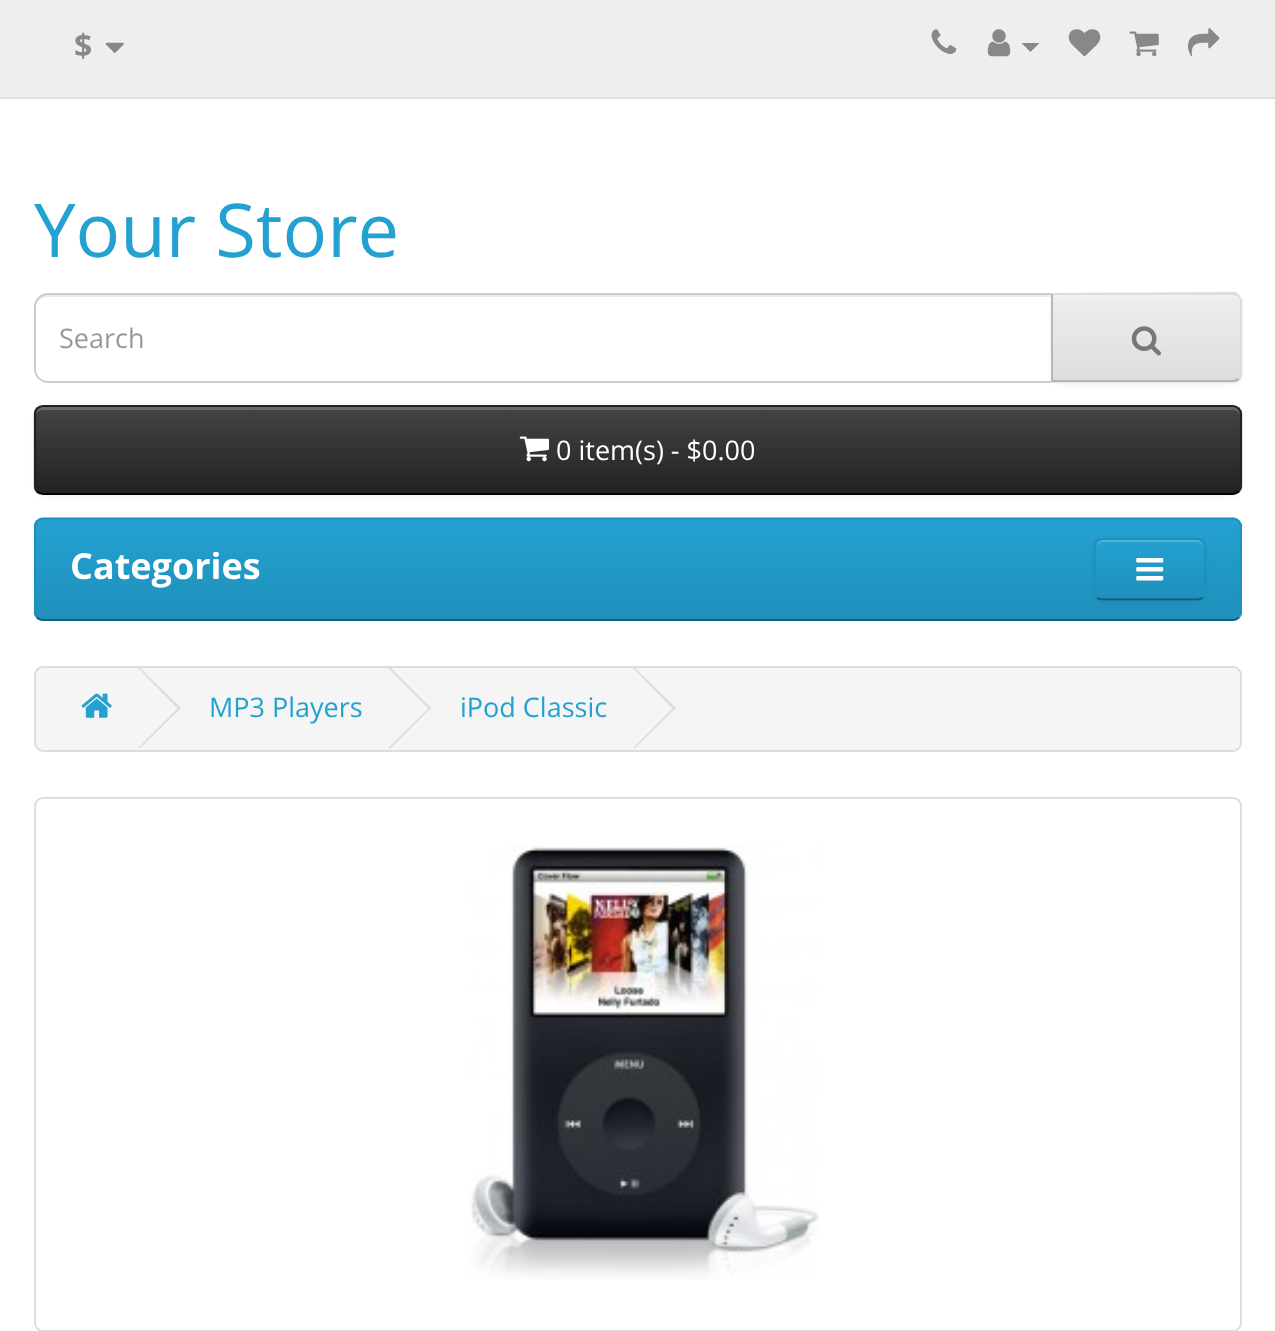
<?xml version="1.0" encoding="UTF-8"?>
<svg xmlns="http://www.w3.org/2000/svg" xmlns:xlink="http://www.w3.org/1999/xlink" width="1275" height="1331">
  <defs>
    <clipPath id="clip1"><path d="M 1051 293 h 182 c 5 0 9 4 9 9 v 72 c 0 5 -4 9 -9 9 h -182 z" /></clipPath>
    <linearGradient id="g1" gradientUnits="userSpaceOnUse" x1="1146" y1="295" x2="1146" y2="380"><stop offset="0" stop-color="#eeeeee" /><stop offset="1" stop-color="#dddddd" /></linearGradient>
    <clipPath id="clip2"><rect x="34" y="405" width="1208" height="90" rx="9" /></clipPath>
    <linearGradient id="g2" gradientUnits="userSpaceOnUse" x1="638" y1="407" x2="638" y2="493"><stop offset="0" stop-color="#444444" /><stop offset="1" stop-color="#222222" /></linearGradient>
    <clipPath id="clip3"><rect x="34" y="518" width="1208" height="103" rx="9" /></clipPath>
    <linearGradient id="g3" gradientUnits="userSpaceOnUse" x1="638" y1="520" x2="638" y2="619"><stop offset="0" stop-color="#23a1d1" /><stop offset="1" stop-color="#1f90bb" /></linearGradient>
    <clipPath id="clip4"><rect x="1094" y="538" width="112" height="63" rx="9" /></clipPath>
    <linearGradient id="g4" gradientUnits="userSpaceOnUse" x1="1150" y1="540" x2="1150" y2="599"><stop offset="0" stop-color="#23a1d1" /><stop offset="1" stop-color="#1f90bb" /></linearGradient>
  </defs>
  <rect width="100%" height="100%" fill="#ffffff" />
  <rect width="1275" height="97" fill="#eeeeee" />
  <rect y="97" width="1275" height="2" fill="#e2e2e2" />
  <image x="105" y="42" width="19" height="11" xlink:href="image1.png" />
  <image x="931" y="29" width="26" height="25" xlink:href="image2.png" />
  <image x="987" y="29" width="24" height="28" xlink:href="image3.png" />
  <path d="M 1021.5 43 h 18 l -9 9 z" fill="#888888" />
  <image x="1068" y="29" width="33" height="28" xlink:href="image4.png" />
  <image x="1129" y="31" width="30" height="26" xlink:href="image5.png" />
  <image x="1188" y="28" width="32" height="29" xlink:href="image6.png" />
  <path d="M 47 297 h 1004 v -2 h -1004 c -6 0 -11 5 -11 11 v 2 c 0 -6 5 -11 11 -11 z" fill="#ececec" />
  <path d="M 48 294 h 1004 v 88 h -1004 c -7 0 -13 -6 -13 -13 v -62 c 0 -7 6 -13 13 -13 z" fill="none" stroke="#cccccc" stroke-width="2" />
  <rect x="1051" y="295" width="191" height="90" rx="9" fill="#000000" fill-opacity="0.05" filter="blur(2px)" />
  <path d="M 1051 293 h 182 c 5 0 9 4 9 9 v 72 c 0 5 -4 9 -9 9 h -182 z" fill="#e7e7e7" />
  <g clip-path="url(#clip1)">
    <rect x="1053" y="295" width="189" height="85" fill="url(#g1)" />
  </g>
  <path d="M 1053 297 h 180 c 4 0 7 3 7 7 v -2 c 0 -4 -3 -7 -7 -7 h -180 z" fill="#f1f1f1" />
  <path d="M 1051 293 l 185 -1 l 3 3 l -1 2 c -1 -1 -3 -2 -5 -2 h -180 z" fill="#dddddd" />
  <path d="M 1242 374 v -72 c 0 -2 -1 -5 -3 -7 l -1 2 c 1 1 2 3 2 5 v 72 c 0 2 -1 3 -2 4 l 1 2 c 2 -2 3 -4 3 -6 z" fill="#dddddd" />
  <path d="M 1239 380 c -1 1 -4 2 -6 2 h -182 l 2 -2 h 181 l 4 -2 z" fill="#b3b3b3" />
  <path d="M 1053 295 v 85 l -2 2 v -89 z" fill="#b7b7b7" />
  <image x="1131" y="326" width="30" height="30" xlink:href="image7.png" />
  <rect x="34" y="407" width="1208" height="90" rx="9" fill="#000000" fill-opacity="0.05" filter="blur(2px)" />
  <g clip-path="url(#clip2)">
    <rect x="34" y="407" width="1208" height="86" fill="url(#g2)" />
  </g>
  <path d="M 43 410 h 1190 c 4 0 7 3 7 6 v -2 c 0 -4 -3 -7 -7 -7 h -1190 c -4 0 -7 3 -7 7 v 2 c 0 -3 3 -6 7 -6 z" fill="#ffffff" fill-opacity="0.2" />
  <path d="M 1238.5 491.5 c -1.5 1.5 -3.5 2.5 -5.5 2.5 h -1190 c -2.5 0 -4.5 -1 -6 -2.5" fill="none" stroke="#000000" stroke-width="2.2" />
  <path d="M 37 491.5 c -1.5 -1.5 -2 -3.5 -2 -5.5 v -72 c 0 -2 0.5 -4 2 -5.5 c 1.5 -1.5 3.5 -2.5 6 -2.5 h 1190 c 2 0 4 1 5.5 2.5 c 1.5 1.5 2.5 3.5 2.5 5.5 v 72 c 0 2 -1 4 -2.5 5.5" fill="none" stroke="#222222" stroke-width="2.2" />
  <image x="519" y="436" width="30" height="26" xlink:href="image8.png" />
  <rect x="34" y="518" width="1208" height="103" rx="9" fill="#229ac8" />
  <g clip-path="url(#clip3)">
    <rect x="34" y="520" width="1208" height="99" fill="url(#g3)" />
  </g>
  <path d="M 1238.5 617.5 c -1.5 1.5 -3.5 2.5 -5.5 2.5 h -1190 c -2.5 0 -4.5 -1 -6 -2.5" fill="none" stroke="#145e7a" stroke-width="2.2" />
  <path d="M 37 617.5 l -2 -4 v -88 l 1.5 -4 c 1.5 -1.5 3.5 -2.5 5.5 -3 h 1192 c 2 0.5 4 1.5 5 3 l 2 4 l -0.5 88 l -2 4" fill="none" stroke="#1f90bb" stroke-width="2.2" />
  <rect x="1094" y="540" width="112" height="63" rx="9" fill="#000000" fill-opacity="0.05" filter="blur(2px)" />
  <rect x="1094" y="538" width="112" height="63" rx="9" fill="#229ac8" />
  <g clip-path="url(#clip4)">
    <rect x="1094" y="540" width="112" height="59" fill="url(#g4)" />
  </g>
  <path d="M 1102 542 h 95 c 4 0 7 3 7 7 c 0 -13 -13 -9 -23 -9 h -62 c -10 0 -23 -4 -23 9 c 0 -4 3 -7 6 -7 z" fill="#ffffff" fill-opacity="0.2" />
  <path d="M 1202.5 597.5 c -1.5 1.5 -3.5 2 -5.5 2 h -94.5 c -2 0 -4 -0.5 -5.5 -2" fill="none" stroke="#145e7a" stroke-width="2.2" />
  <path d="M 1097 597.5 c -1.5 -1.5 -2.5 -3.5 -2.5 -5.5 v -45 c 0 -2.5 1 -4.5 2.5 -6 c 1.5 -1.5 3.5 -2 5.5 -2 h 94.5 c 2 0 4 0.5 5.5 2 c 1.5 1.5 2.5 3.5 2.5 6 v 45 c 0 2 -1 4 -2.5 5.5" fill="none" stroke="#1f90bb" stroke-width="2.2" />
  <image x="1136" y="558" width="28" height="23" xlink:href="image9.png" />
  <rect x="35" y="667" width="1206" height="84" rx="8" fill="#f5f5f5" stroke="#dddddd" stroke-width="2" />
  <image x="81" y="693" width="31" height="25" xlink:href="image10.png" />
  <path d="M 138 668 l 1 -1 l 42 41 l -2 2 z" fill="#dddddd" />
  <path d="M 138 748 l 41 -41 l 2 1 l -42 41 z" fill="#dddddd" />
  <path d="M 388 668 l 2 -1 l 41 41 l -1 2 z" fill="#dddddd" />
  <path d="M 388 748 l 42 -41 l 1 1 l -41 41 z" fill="#dddddd" />
  <path d="M 633 668 l 1 -1 l 42 41 l -2 2 z" fill="#dddddd" />
  <path d="M 633 748 l 41 -41 l 2 1 l -42 41 z" fill="#dddddd" />
  <rect x="35" y="798" width="1206" height="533" rx="8" fill="none" stroke="#dddddd" stroke-width="2" />
  <image x="469" y="844" width="351" height="436" xlink:href="image11.png" />
  <text x="74" y="57" style="font-family: Open Sans; font-size: 32px; font-weight: bold; fill: #888888">$</text>
  <text x="34" y="257" style="font-family: Open Sans; font-size: 74.25px; fill: #23a1d1">Your Store</text>
  <text x="59" y="348" style="font-family: Open Sans; font-size: 27px; fill: #999999">Search</text>
  <text x="556" y="460" style="font-family: Open Sans; font-size: 27px; fill: #ffffff">0 item(s) - $0.00</text>
  <text x="70" y="579" style="font-family: Open Sans; font-size: 36px; font-weight: bold; fill: #ffffff">Categories</text>
  <text x="209" y="717" style="font-family: Open Sans; font-size: 27px; fill: #23a1d1">MP3 Players</text>
  <text x="460" y="717" style="font-family: Open Sans; font-size: 27px; fill: #23a1d1">iPod Classic</text>
</svg>
